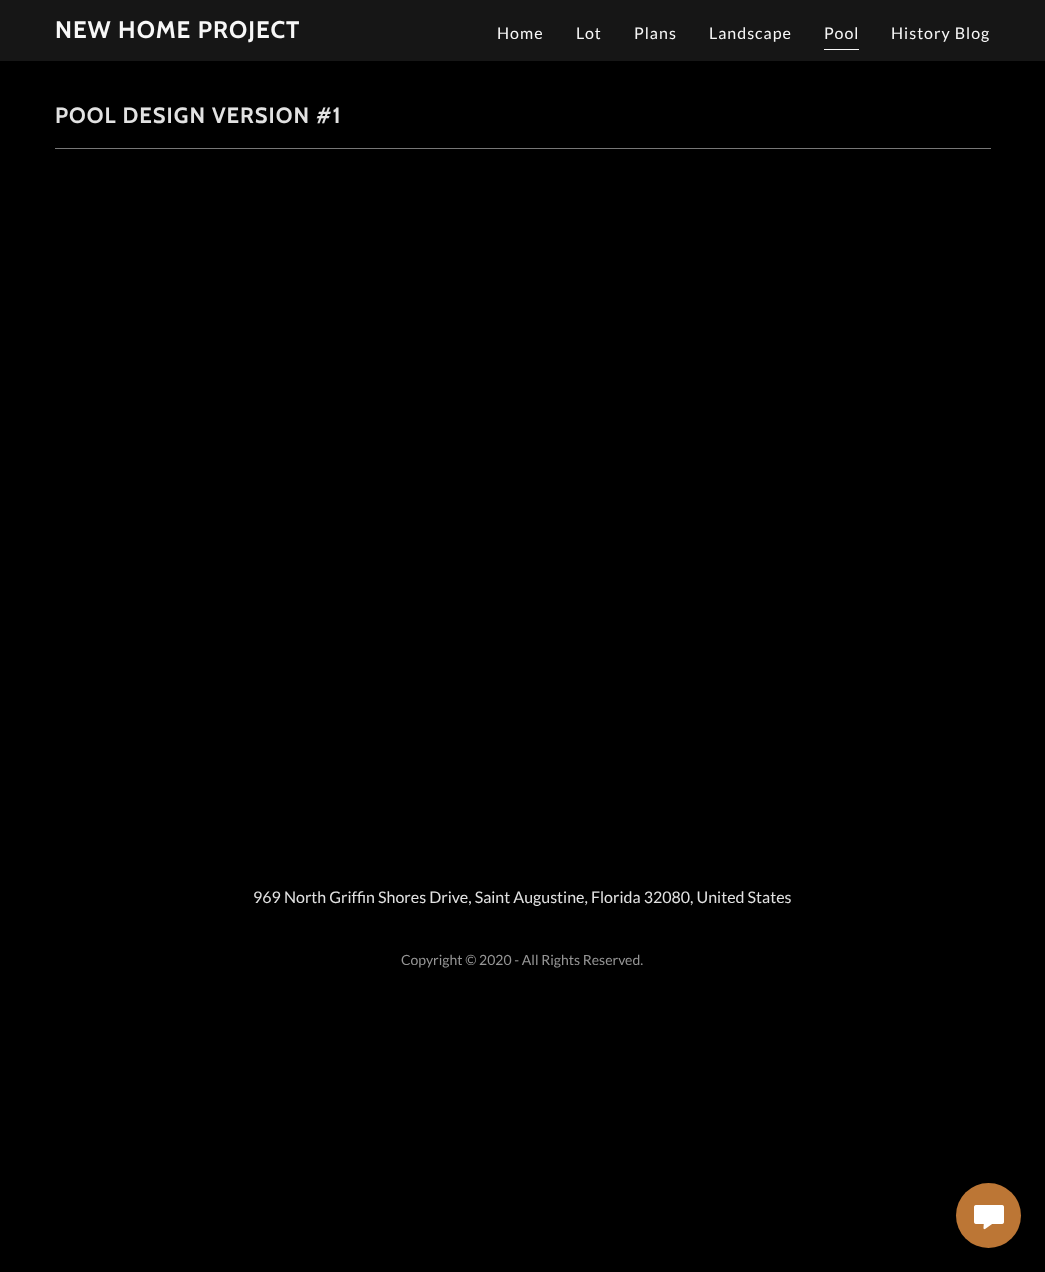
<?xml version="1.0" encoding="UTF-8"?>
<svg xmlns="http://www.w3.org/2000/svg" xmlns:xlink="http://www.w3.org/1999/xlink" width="1045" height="1272">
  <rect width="100%" height="100%" fill="#000000" />
  <rect width="1045" height="61" fill="#161616" />
  <rect x="824" y="49" width="35" height="1" fill="#f7f7f7" />
  <rect x="55" y="148" width="936" height="1" fill="#777777" />
  <circle cx="988.5" cy="1215.5" r="32.5" fill="#bc7635" />
  <image x="974" y="1205" width="30" height="25" xlink:href="image1.png" />
  <text x="55" y="38" style="font-family: Cabin; font-size: 24px; font-weight: bold; letter-spacing: 1px; fill: #f7f7f7">NEW HOME PROJECT</text>
  <text x="497" y="39" style="font-family: Lato; font-size: 16px; letter-spacing: 1px; fill: #f7f7f7">Home</text>
  <text x="576" y="39" style="font-family: Lato; font-size: 16px; letter-spacing: 1px; fill: #f7f7f7">Lot</text>
  <text x="634" y="39" style="font-family: Lato; font-size: 16px; letter-spacing: 1px; fill: #f7f7f7">Plans</text>
  <text x="709" y="39" style="font-family: Lato; font-size: 16px; letter-spacing: 1px; fill: #f7f7f7">Landscape</text>
  <text x="824" y="39" style="font-family: Lato; font-size: 16px; letter-spacing: 1px; fill: #f7f7f7">Pool</text>
  <text x="891" y="39" style="font-family: Lato; font-size: 16px; letter-spacing: 1px; fill: #f7f7f7">History Blog</text>
  <text x="55" y="123" style="font-family: Cabin; font-size: 22px; font-weight: bold; letter-spacing: 1px; fill: #e2e2e2">POOL DESIGN VERSION #1</text>
  <text x="253" y="903" style="font-family: Lato; font-size: 16px; fill: #e2e2e2">969 North Griffin Shores Drive, Saint Augustine, Florida 32080, United States</text>
  <text x="401" y="965" style="font-family: Lato; font-size: 14px; fill: #969696">Copyright © 2020 - All Rights Reserved.</text>
</svg>
